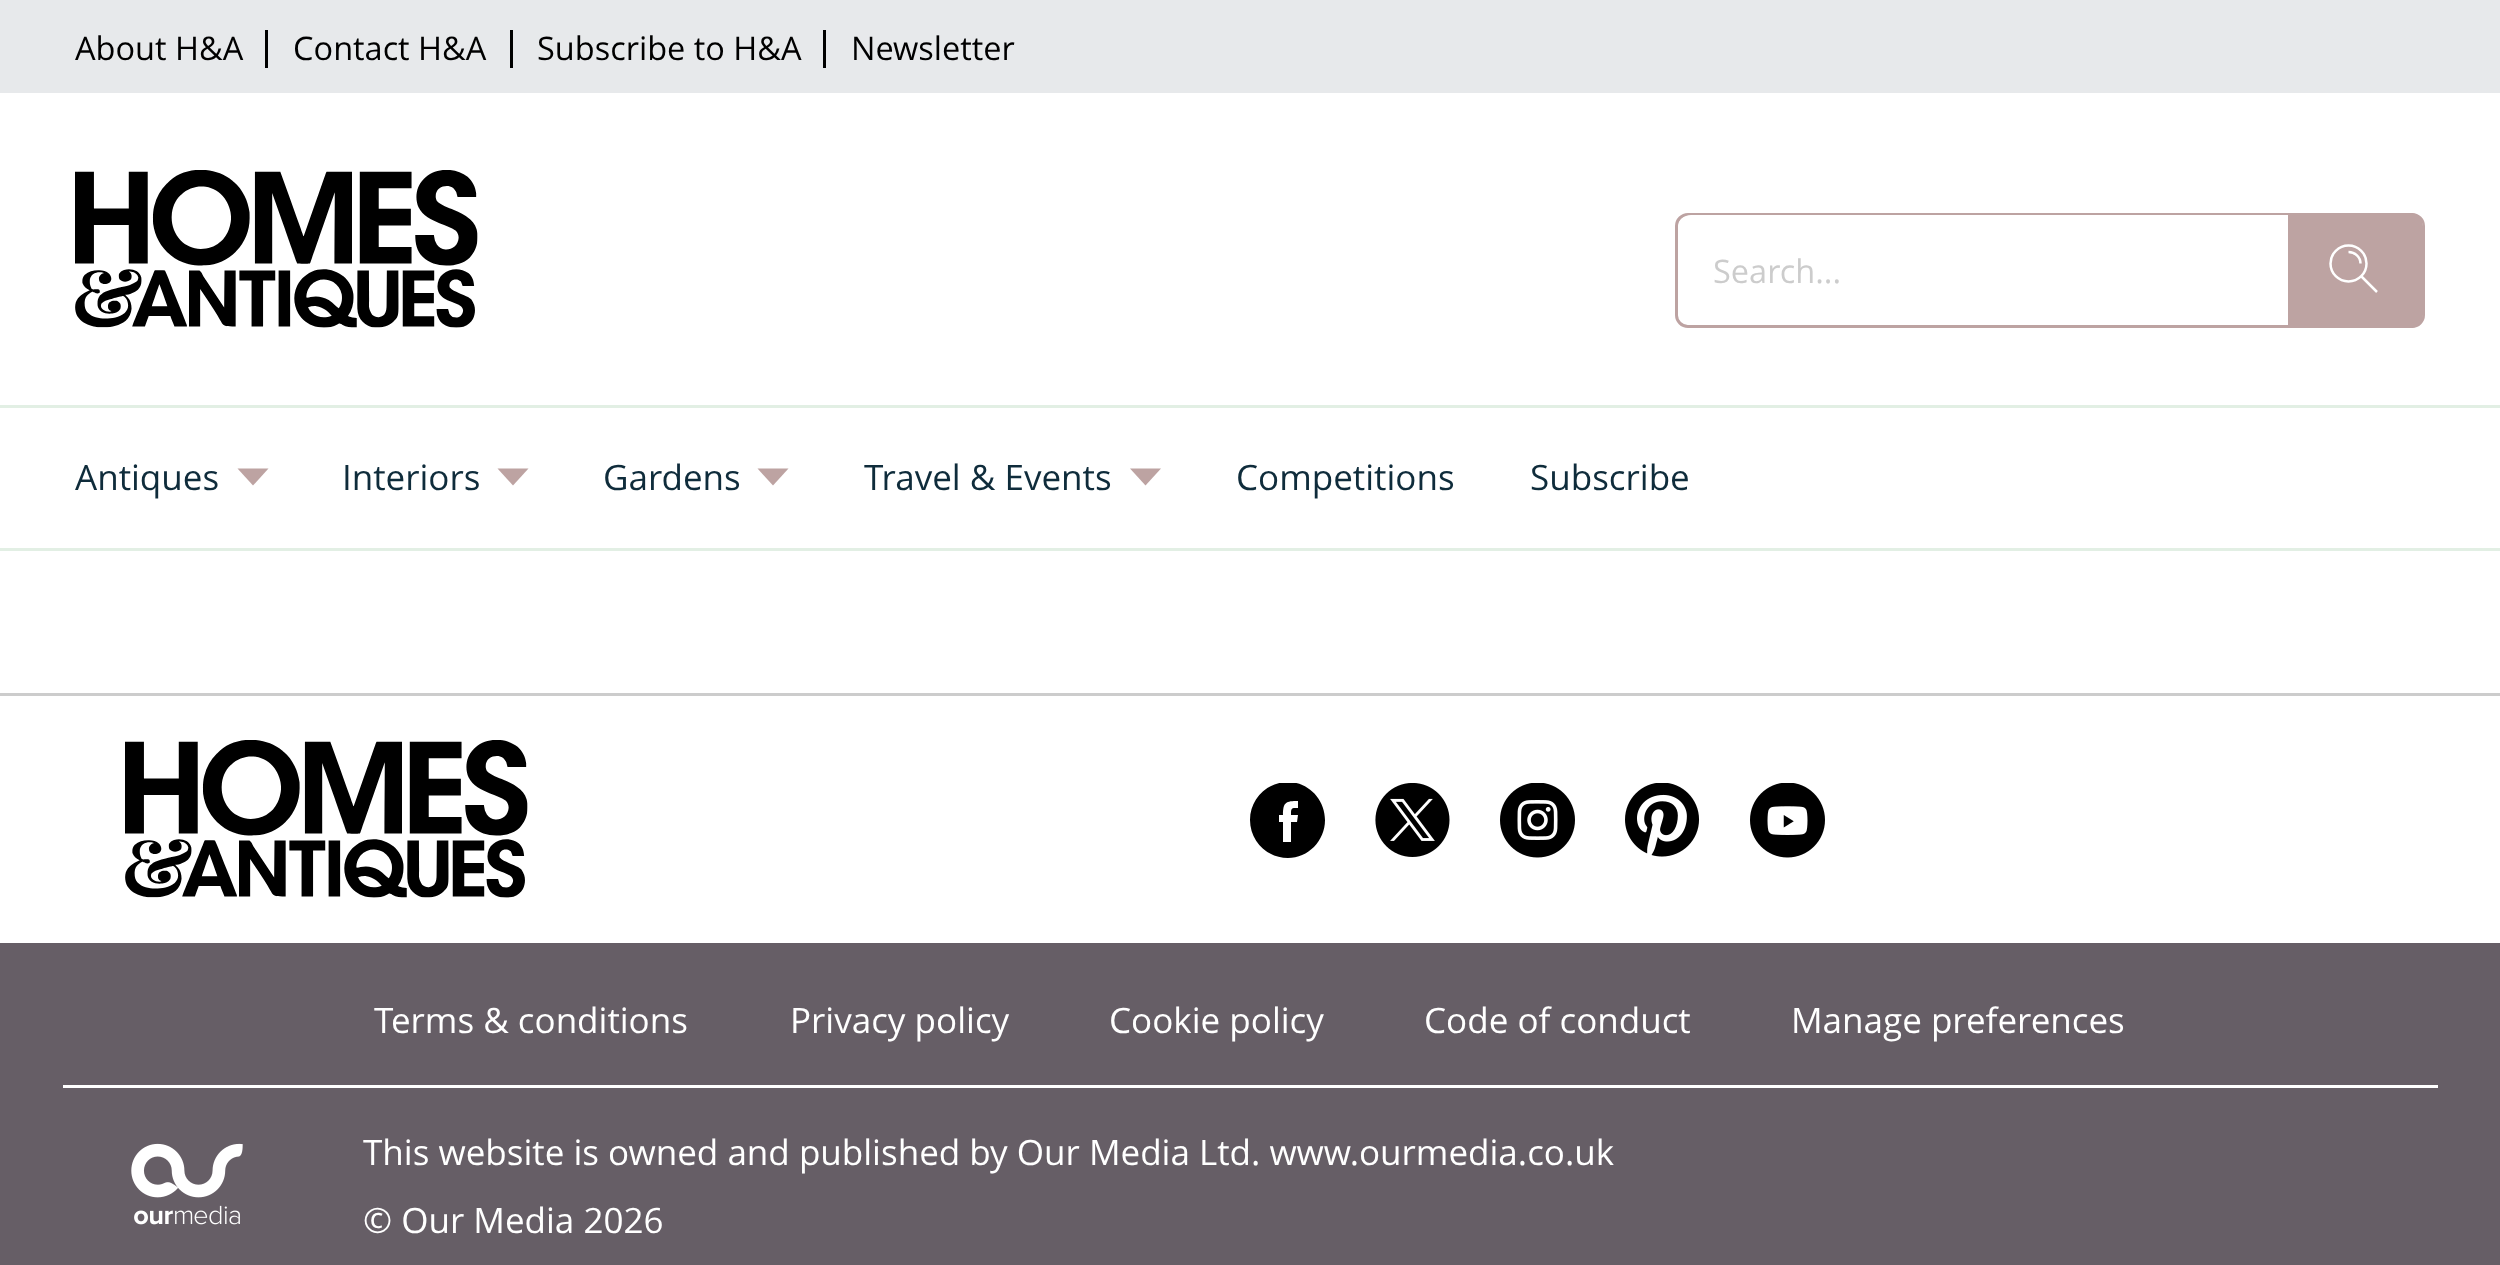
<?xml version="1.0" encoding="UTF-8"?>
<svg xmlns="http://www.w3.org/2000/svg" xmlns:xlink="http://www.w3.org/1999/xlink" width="2500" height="1265">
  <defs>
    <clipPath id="clip1"><rect x="1250" y="783" width="75" height="75" /></clipPath>
  </defs>
  <rect width="100%" height="100%" fill="#ffffff" />
  <rect width="2500" height="93" fill="#e7e9eb" />
  <rect x="265" y="30" width="3" height="38" fill="#000000" />
  <rect x="510" y="30" width="3" height="38" fill="#000000" />
  <rect x="823" y="30" width="3" height="38" fill="#000000" />
  <image x="75" y="170" width="403" height="158" xlink:href="image1.png" />
  <rect x="1676.5" y="214.5" width="747" height="112" rx="11.5" fill="none" stroke="#bda3a2" stroke-width="3" />
  <rect x="1678" y="215" width="745" height="110" rx="13" fill="#ffffff" />
  <path d="M 2288 213 h 122 c 7 0 13 6 13 13 v 89 c 0 7 -6 13 -13 13 h -122 z" fill="#bda3a2" />
  <circle cx="2348.5" cy="263.5" r="18" fill="none" stroke="#ffffff" stroke-width="2.5" />
  <path d="M 2360.5 263.5 c 0 -6.5 -5.5 -11.5 -12 -11.5" fill="none" stroke="#ffffff" stroke-width="2.5" />
  <path d="M 2377 292 l -15.5 -15.5" fill="none" stroke="#ffffff" stroke-width="2.5" stroke-linejoin="round" />
  <rect y="405" width="2500" height="3" fill="#e2efe4" />
  <rect y="548" width="2500" height="3" fill="#e2efe4" />
  <path d="M 253 485.5 l -15.5 -17 h 31 z" fill="#bda3a2" />
  <path d="M 513 485.5 l -15.5 -17 h 31 z" fill="#bda3a2" />
  <path d="M 773 485.5 l -15.5 -17 h 31 z" fill="#bda3a2" />
  <path d="M 1145.5 485.5 l -15.5 -17 h 31 z" fill="#bda3a2" />
  <rect y="693" width="2500" height="3" fill="#cccccc" />
  <image x="125" y="740" width="403" height="158" xlink:href="image2.png" />
  <g clip-path="url(#clip1)">
    <path d="M 1288 782 c -21 0 -38 17 -38 38 c 0 21 17 38 38 38 c 20 0 37 -17 37 -38 c 0 -21 -17 -38 -37 -38 z m 3 40 v 20 h -8 v -20 h -4 v -7 h 4 c 0 -13 3 -14 15 -14 v 7 c -7 0 -7 0 -7 7 h 7 l -1 7 z" fill="#000000" fill-rule="evenodd" />
  </g>
  <image x="1375" y="783" width="75" height="74" xlink:href="image3.png" />
  <image x="1500" y="783" width="75" height="75" xlink:href="image4.png" />
  <image x="1625" y="783" width="75" height="74" xlink:href="image5.png" />
  <image x="1750" y="783" width="75" height="75" xlink:href="image6.png" />
  <rect y="943" width="2500" height="322" fill="#665e66" />
  <rect x="63" y="1085" width="2375" height="3" fill="#ffffff" />
  <image x="131" y="1143" width="112" height="82" xlink:href="image7.png" />
  <text x="75" y="60" style="font-family: Open Sans; font-size: 32.5px; fill: #000000">About H&amp;A</text>
  <text x="293" y="60" style="font-family: Open Sans; font-size: 32.5px; fill: #000000">Contact H&amp;A</text>
  <text x="537" y="60" style="font-family: Open Sans; font-size: 32.5px; fill: #000000">Subscribe to H&amp;A</text>
  <text x="851" y="60" style="font-family: Open Sans; font-size: 32.5px; fill: #000000">Newsletter</text>
  <text x="1713" y="283" style="font-family: Open Sans; font-size: 32.5px; fill: #cccccc">Search...</text>
  <text x="75" y="490" style="font-family: Open Sans; font-size: 35px; fill: #0f2c3b">Antiques</text>
  <text x="342" y="490" style="font-family: Open Sans; font-size: 35px; fill: #0f2c3b">Interiors</text>
  <text x="603" y="490" style="font-family: Open Sans; font-size: 35px; fill: #0f2c3b">Gardens</text>
  <text x="864" y="490" style="font-family: Open Sans; font-size: 35px; fill: #0f2c3b">Travel &amp; Events</text>
  <text x="1236" y="490" style="font-family: Open Sans; font-size: 35px; fill: #0f2c3b">Competitions</text>
  <text x="1530" y="490" style="font-family: Open Sans; font-size: 35px; fill: #0f2c3b">Subscribe</text>
  <text x="374" y="1033" style="font-family: Open Sans; font-size: 35px; fill: #ffffff">Terms &amp; conditions</text>
  <text x="790" y="1033" style="font-family: Open Sans; font-size: 35px; fill: #ffffff">Privacy policy</text>
  <text x="1109" y="1033" style="font-family: Open Sans; font-size: 35px; fill: #ffffff">Cookie policy</text>
  <text x="1424" y="1033" style="font-family: Open Sans; font-size: 35px; fill: #ffffff">Code of conduct</text>
  <text x="1791" y="1033" style="font-family: Open Sans; font-size: 35px; fill: #ffffff">Manage preferences</text>
  <text x="363" y="1165" style="font-family: Open Sans; font-size: 35px; fill: #ffffff">This website is owned and published by Our Media Ltd. www.ourmedia.co.uk</text>
  <text x="363" y="1233" style="font-family: Open Sans; font-size: 35px; fill: #ffffff">© Our Media 2026</text>
</svg>
